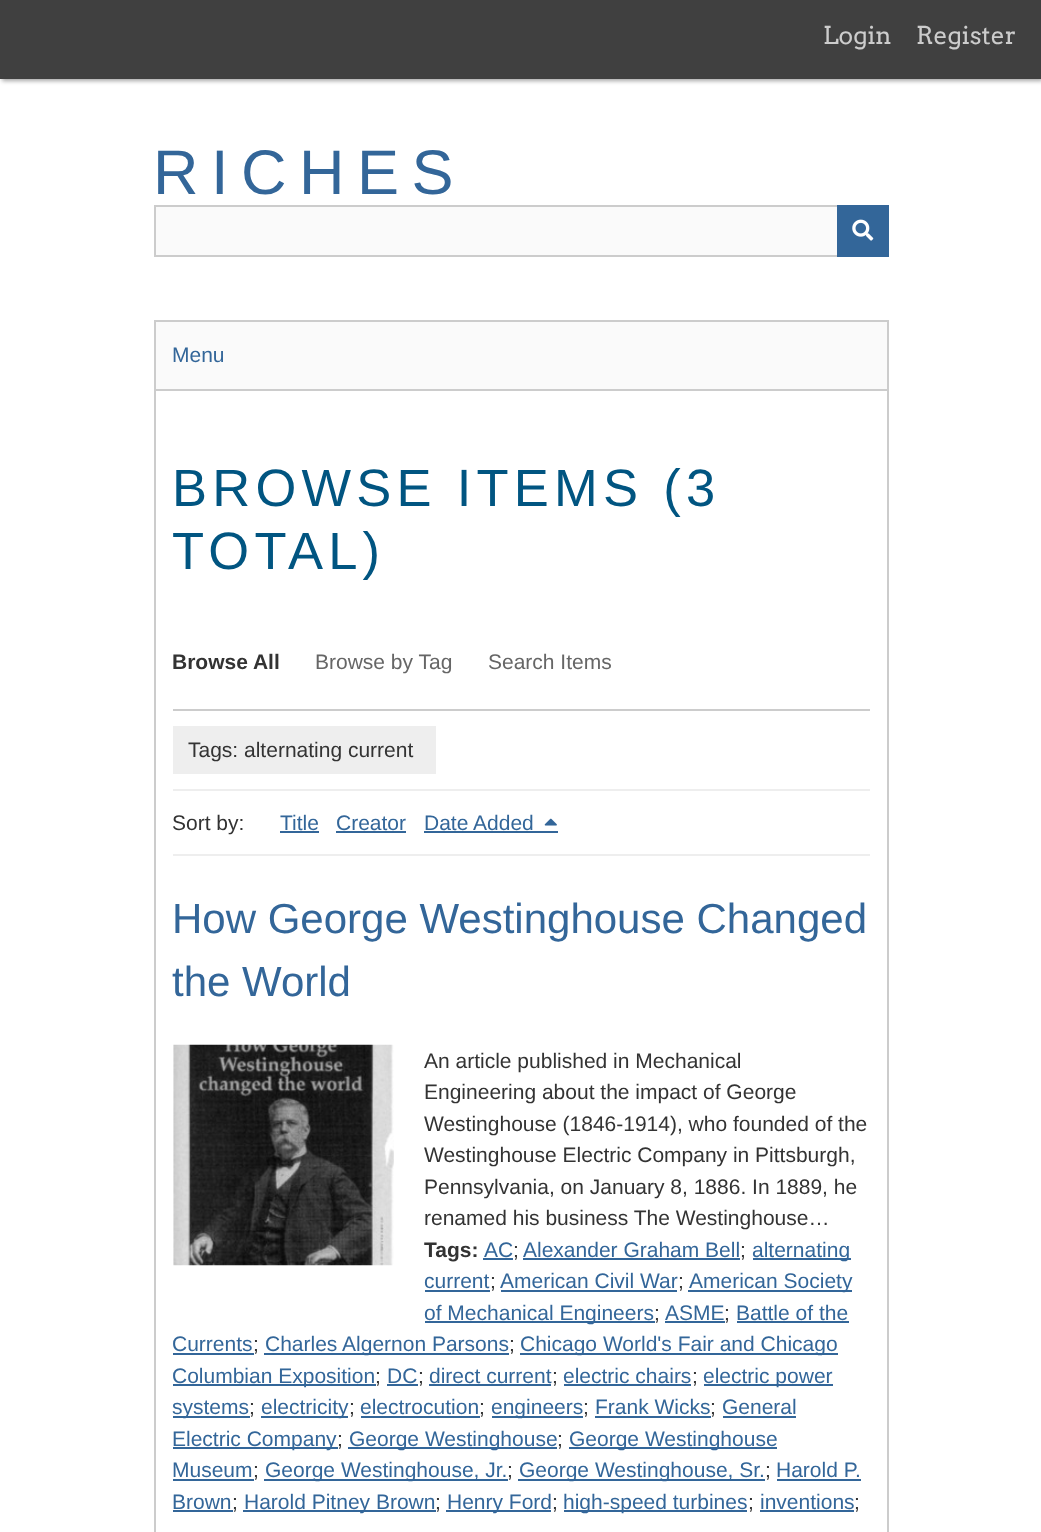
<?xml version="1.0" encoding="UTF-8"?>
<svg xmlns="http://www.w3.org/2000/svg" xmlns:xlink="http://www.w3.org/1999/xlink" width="1041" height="1532">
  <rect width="100%" height="100%" fill="#ffffff" />
  <rect x="2" y="2" width="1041" height="79" fill="#000000" fill-opacity="0.35" filter="blur(2px)" />
  <rect width="1041" height="79" fill="#404040" />
  <rect x="156" y="207" width="681" height="48" fill="#fafafa" />
  <rect x="155" y="206" width="733" height="50" fill="none" stroke="#cccccc" stroke-width="2" />
  <rect x="837" y="205" width="52" height="52" fill="#336699" />
  <image x="852" y="219" width="22" height="22" xlink:href="image1.png" />
  <rect x="156" y="322" width="731" height="67" fill="#fafafa" />
  <rect x="154" y="320" width="735" height="2" fill="#cccccc" />
  <rect x="887" y="320" width="2" height="69" fill="#cccccc" />
  <rect x="154" y="320" width="2" height="69" fill="#cccccc" />
  <rect x="155" y="390" width="733" height="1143" fill="none" stroke="#cccccc" stroke-width="2" />
  <rect x="173" y="709" width="697" height="2" fill="#cccccc" />
  <rect x="173" y="789" width="697" height="2" fill="#eeeeee" />
  <rect x="173" y="726" width="263" height="48" fill="#eeeeee" />
  <rect x="280" y="831" width="39" height="2" fill="#336699" />
  <rect x="336" y="831" width="70" height="2" fill="#336699" />
  <rect x="424" y="831" width="134" height="2" fill="#336699" />
  <image x="544" y="818" width="13" height="8" xlink:href="image2.png" />
  <rect x="173" y="854" width="697" height="2" fill="#eeeeee" />
  <image x="173" y="1044" width="221" height="222" xlink:href="image3.png" />
  <rect x="483" y="1258" width="30" height="2" fill="#336699" />
  <rect x="523" y="1258" width="217" height="2" fill="#336699" />
  <rect x="753" y="1258" width="98" height="2" fill="#336699" />
  <rect x="425" y="1290" width="65" height="2" fill="#336699" />
  <rect x="501" y="1290" width="176" height="2" fill="#336699" />
  <rect x="688" y="1290" width="164" height="2" fill="#336699" />
  <rect x="425" y="1321" width="230" height="2" fill="#336699" />
  <rect x="665" y="1321" width="60" height="2" fill="#336699" />
  <rect x="737" y="1321" width="112" height="2" fill="#336699" />
  <rect x="173" y="1353" width="81" height="2" fill="#336699" />
  <rect x="264" y="1353" width="245" height="2" fill="#336699" />
  <rect x="520" y="1353" width="318" height="2" fill="#336699" />
  <rect x="173" y="1384" width="203" height="2" fill="#336699" />
  <rect x="387" y="1384" width="31" height="2" fill="#336699" />
  <rect x="429" y="1384" width="122" height="2" fill="#336699" />
  <rect x="564" y="1384" width="127" height="2" fill="#336699" />
  <rect x="704" y="1384" width="129" height="2" fill="#336699" />
  <rect x="173" y="1416" width="77" height="2" fill="#336699" />
  <rect x="261" y="1416" width="87" height="2" fill="#336699" />
  <rect x="361" y="1416" width="119" height="2" fill="#336699" />
  <rect x="492" y="1416" width="91" height="2" fill="#336699" />
  <rect x="595" y="1416" width="116" height="2" fill="#336699" />
  <rect x="723" y="1416" width="73" height="2" fill="#336699" />
  <rect x="173" y="1447" width="165" height="2" fill="#336699" />
  <rect x="348" y="1447" width="209" height="2" fill="#336699" />
  <rect x="569" y="1447" width="208" height="2" fill="#336699" />
  <rect x="173" y="1479" width="81" height="2" fill="#336699" />
  <rect x="264" y="1479" width="244" height="2" fill="#336699" />
  <rect x="518" y="1479" width="247" height="2" fill="#336699" />
  <rect x="777" y="1479" width="84" height="2" fill="#336699" />
  <rect x="173" y="1510" width="60" height="2" fill="#336699" />
  <rect x="243" y="1510" width="193" height="2" fill="#336699" />
  <rect x="446" y="1510" width="105" height="2" fill="#336699" />
  <rect x="564" y="1510" width="183" height="2" fill="#336699" />
  <rect x="760" y="1510" width="94" height="2" fill="#336699" />
  <text x="823" y="44" style="font-family: Arvo; font-size: 24.5px; fill: #cccccc">Login</text>
  <text x="916" y="44" style="font-family: Arvo; font-size: 24.5px; fill: #cccccc">Register</text>
  <text x="153" y="194" style="font-family: Liberation Sans; font-size: 63px; letter-spacing: 12.5px; fill: #336699">RICHES</text>
  <text x="172" y="362" style="font-family: Liberation Sans; font-size: 21px; fill: #336699">Menu</text>
  <text x="172" y="506" style="font-family: Liberation Sans; font-size: 52.5px; letter-spacing: 5.25px; fill: #015581">BROWSE ITEMS (3</text>
  <text x="172" y="569" style="font-family: Liberation Sans; font-size: 52.5px; letter-spacing: 5.25px; fill: #015581">TOTAL)</text>
  <text x="172" y="669" style="font-family: Liberation Sans; font-size: 21px; font-weight: bold; fill: #333333">Browse All</text>
  <text x="315" y="669" style="font-family: Liberation Sans; font-size: 21px; fill: #666666">Browse by Tag</text>
  <text x="488" y="669" style="font-family: Liberation Sans; font-size: 21px; fill: #666666">Search Items</text>
  <text x="188" y="757" style="font-family: Liberation Sans; font-size: 21px; fill: #333333">Tags: alternating current</text>
  <text x="172" y="830" style="font-family: Liberation Sans; font-size: 21px; fill: #333333">Sort by:</text>
  <text x="280" y="830" style="font-family: Liberation Sans; font-size: 21px; fill: #336699">Title</text>
  <text x="336" y="830" style="font-family: Liberation Sans; font-size: 21px; fill: #336699">Creator</text>
  <text x="424" y="830" style="font-family: Liberation Sans; font-size: 21px; fill: #336699">Date Added</text>
  <text x="172" y="933" style="font-family: Liberation Sans; font-size: 42px; fill: #336699">How George Westinghouse Changed</text>
  <text x="172" y="996" style="font-family: Liberation Sans; font-size: 42px; fill: #336699">the World</text>
  <text x="424" y="1068" style="font-family: Liberation Sans; font-size: 21px; fill: #333333">An article published in Mechanical</text>
  <text x="424" y="1099" style="font-family: Liberation Sans; font-size: 21px; fill: #333333">Engineering about the impact of George</text>
  <text x="424" y="1131" style="font-family: Liberation Sans; font-size: 21px; fill: #333333">Westinghouse (1846-1914), who founded of the</text>
  <text x="424" y="1162" style="font-family: Liberation Sans; font-size: 21px; fill: #333333">Westinghouse Electric Company in Pittsburgh,</text>
  <text x="424" y="1194" style="font-family: Liberation Sans; font-size: 21px; fill: #333333">Pennsylvania, on January 8, 1886. In 1889, he</text>
  <text x="424" y="1225" style="font-family: Liberation Sans; font-size: 21px; fill: #333333">renamed his business The Westinghouse…</text>
  <text x="424" y="1257" style="font-family: Liberation Sans; font-size: 21px; font-weight: bold; fill: #333333">Tags:</text>
  <text x="484" y="1257" style="font-family: Liberation Sans; font-size: 21px; fill: #336699">AC</text>
  <text x="513" y="1257" style="font-family: Liberation Sans; font-size: 21px; fill: #333333">;</text>
  <text x="523" y="1257" style="font-family: Liberation Sans; font-size: 21px; fill: #336699">Alexander Graham Bell</text>
  <text x="740" y="1257" style="font-family: Liberation Sans; font-size: 21px; fill: #333333">;</text>
  <text x="752" y="1257" style="font-family: Liberation Sans; font-size: 21px; fill: #336699">alternating</text>
  <text x="424" y="1288" style="font-family: Liberation Sans; font-size: 21px; fill: #336699">current</text>
  <text x="490" y="1288" style="font-family: Liberation Sans; font-size: 21px; fill: #333333">;</text>
  <text x="500" y="1288" style="font-family: Liberation Sans; font-size: 21px; fill: #336699">American Civil War</text>
  <text x="678" y="1288" style="font-family: Liberation Sans; font-size: 21px; fill: #333333">;</text>
  <text x="689" y="1288" style="font-family: Liberation Sans; font-size: 21px; fill: #336699">American Society</text>
  <text x="424" y="1320" style="font-family: Liberation Sans; font-size: 21px; fill: #336699">of Mechanical Engineers</text>
  <text x="654" y="1320" style="font-family: Liberation Sans; font-size: 21px; fill: #333333">;</text>
  <text x="665" y="1320" style="font-family: Liberation Sans; font-size: 21px; fill: #336699">ASME</text>
  <text x="724" y="1320" style="font-family: Liberation Sans; font-size: 21px; fill: #333333">;</text>
  <text x="736" y="1320" style="font-family: Liberation Sans; font-size: 21px; fill: #336699">Battle of the</text>
  <text x="172" y="1351" style="font-family: Liberation Sans; font-size: 21px; fill: #336699">Currents</text>
  <text x="253" y="1351" style="font-family: Liberation Sans; font-size: 21px; fill: #333333">;</text>
  <text x="265" y="1351" style="font-family: Liberation Sans; font-size: 21px; fill: #336699">Charles Algernon Parsons</text>
  <text x="509" y="1351" style="font-family: Liberation Sans; font-size: 21px; fill: #333333">;</text>
  <text x="520" y="1351" style="font-family: Liberation Sans; font-size: 21px; fill: #336699">Chicago World's Fair and Chicago</text>
  <text x="172" y="1383" style="font-family: Liberation Sans; font-size: 21px; fill: #336699">Columbian Exposition</text>
  <text x="375" y="1383" style="font-family: Liberation Sans; font-size: 21px; fill: #333333">;</text>
  <text x="387" y="1383" style="font-family: Liberation Sans; font-size: 21px; fill: #336699">DC</text>
  <text x="418" y="1383" style="font-family: Liberation Sans; font-size: 21px; fill: #333333">;</text>
  <text x="429" y="1383" style="font-family: Liberation Sans; font-size: 21px; fill: #336699">direct current</text>
  <text x="552" y="1383" style="font-family: Liberation Sans; font-size: 21px; fill: #333333">;</text>
  <text x="563" y="1383" style="font-family: Liberation Sans; font-size: 21px; fill: #336699">electric chairs</text>
  <text x="692" y="1383" style="font-family: Liberation Sans; font-size: 21px; fill: #333333">;</text>
  <text x="703" y="1383" style="font-family: Liberation Sans; font-size: 21px; fill: #336699">electric power</text>
  <text x="172" y="1414" style="font-family: Liberation Sans; font-size: 21px; fill: #336699">systems</text>
  <text x="249" y="1414" style="font-family: Liberation Sans; font-size: 21px; fill: #333333">;</text>
  <text x="261" y="1414" style="font-family: Liberation Sans; font-size: 21px; fill: #336699">electricity</text>
  <text x="349" y="1414" style="font-family: Liberation Sans; font-size: 21px; fill: #333333">;</text>
  <text x="360" y="1414" style="font-family: Liberation Sans; font-size: 21px; fill: #336699">electrocution</text>
  <text x="479" y="1414" style="font-family: Liberation Sans; font-size: 21px; fill: #333333">;</text>
  <text x="491" y="1414" style="font-family: Liberation Sans; font-size: 21px; fill: #336699">engineers</text>
  <text x="583" y="1414" style="font-family: Liberation Sans; font-size: 21px; fill: #333333">;</text>
  <text x="595" y="1414" style="font-family: Liberation Sans; font-size: 21px; fill: #336699">Frank Wicks</text>
  <text x="710" y="1414" style="font-family: Liberation Sans; font-size: 21px; fill: #333333">;</text>
  <text x="722" y="1414" style="font-family: Liberation Sans; font-size: 21px; fill: #336699">General</text>
  <text x="172" y="1446" style="font-family: Liberation Sans; font-size: 21px; fill: #336699">Electric Company</text>
  <text x="337" y="1446" style="font-family: Liberation Sans; font-size: 21px; fill: #333333">;</text>
  <text x="349" y="1446" style="font-family: Liberation Sans; font-size: 21px; fill: #336699">George Westinghouse</text>
  <text x="557" y="1446" style="font-family: Liberation Sans; font-size: 21px; fill: #333333">;</text>
  <text x="569" y="1446" style="font-family: Liberation Sans; font-size: 21px; fill: #336699">George Westinghouse</text>
  <text x="172" y="1477" style="font-family: Liberation Sans; font-size: 21px; fill: #336699">Museum</text>
  <text x="253" y="1477" style="font-family: Liberation Sans; font-size: 21px; fill: #333333">;</text>
  <text x="265" y="1477" style="font-family: Liberation Sans; font-size: 21px; fill: #336699">George Westinghouse, Jr.</text>
  <text x="507" y="1477" style="font-family: Liberation Sans; font-size: 21px; fill: #333333">;</text>
  <text x="519" y="1477" style="font-family: Liberation Sans; font-size: 21px; fill: #336699">George Westinghouse, Sr.</text>
  <text x="765" y="1477" style="font-family: Liberation Sans; font-size: 21px; fill: #333333">;</text>
  <text x="776" y="1477" style="font-family: Liberation Sans; font-size: 21px; fill: #336699">Harold P.</text>
  <text x="172" y="1509" style="font-family: Liberation Sans; font-size: 21px; fill: #336699">Brown</text>
  <text x="232" y="1509" style="font-family: Liberation Sans; font-size: 21px; fill: #333333">;</text>
  <text x="244" y="1509" style="font-family: Liberation Sans; font-size: 21px; fill: #336699">Harold Pitney Brown</text>
  <text x="435" y="1509" style="font-family: Liberation Sans; font-size: 21px; fill: #333333">;</text>
  <text x="447" y="1509" style="font-family: Liberation Sans; font-size: 21px; fill: #336699">Henry Ford</text>
  <text x="552" y="1509" style="font-family: Liberation Sans; font-size: 21px; fill: #333333">;</text>
  <text x="563" y="1509" style="font-family: Liberation Sans; font-size: 21px; fill: #336699">high-speed turbines</text>
  <text x="748" y="1509" style="font-family: Liberation Sans; font-size: 21px; fill: #333333">;</text>
  <text x="760" y="1509" style="font-family: Liberation Sans; font-size: 21px; fill: #336699">inventions</text>
  <text x="854" y="1509" style="font-family: Liberation Sans; font-size: 21px; fill: #333333">;</text>
</svg>
